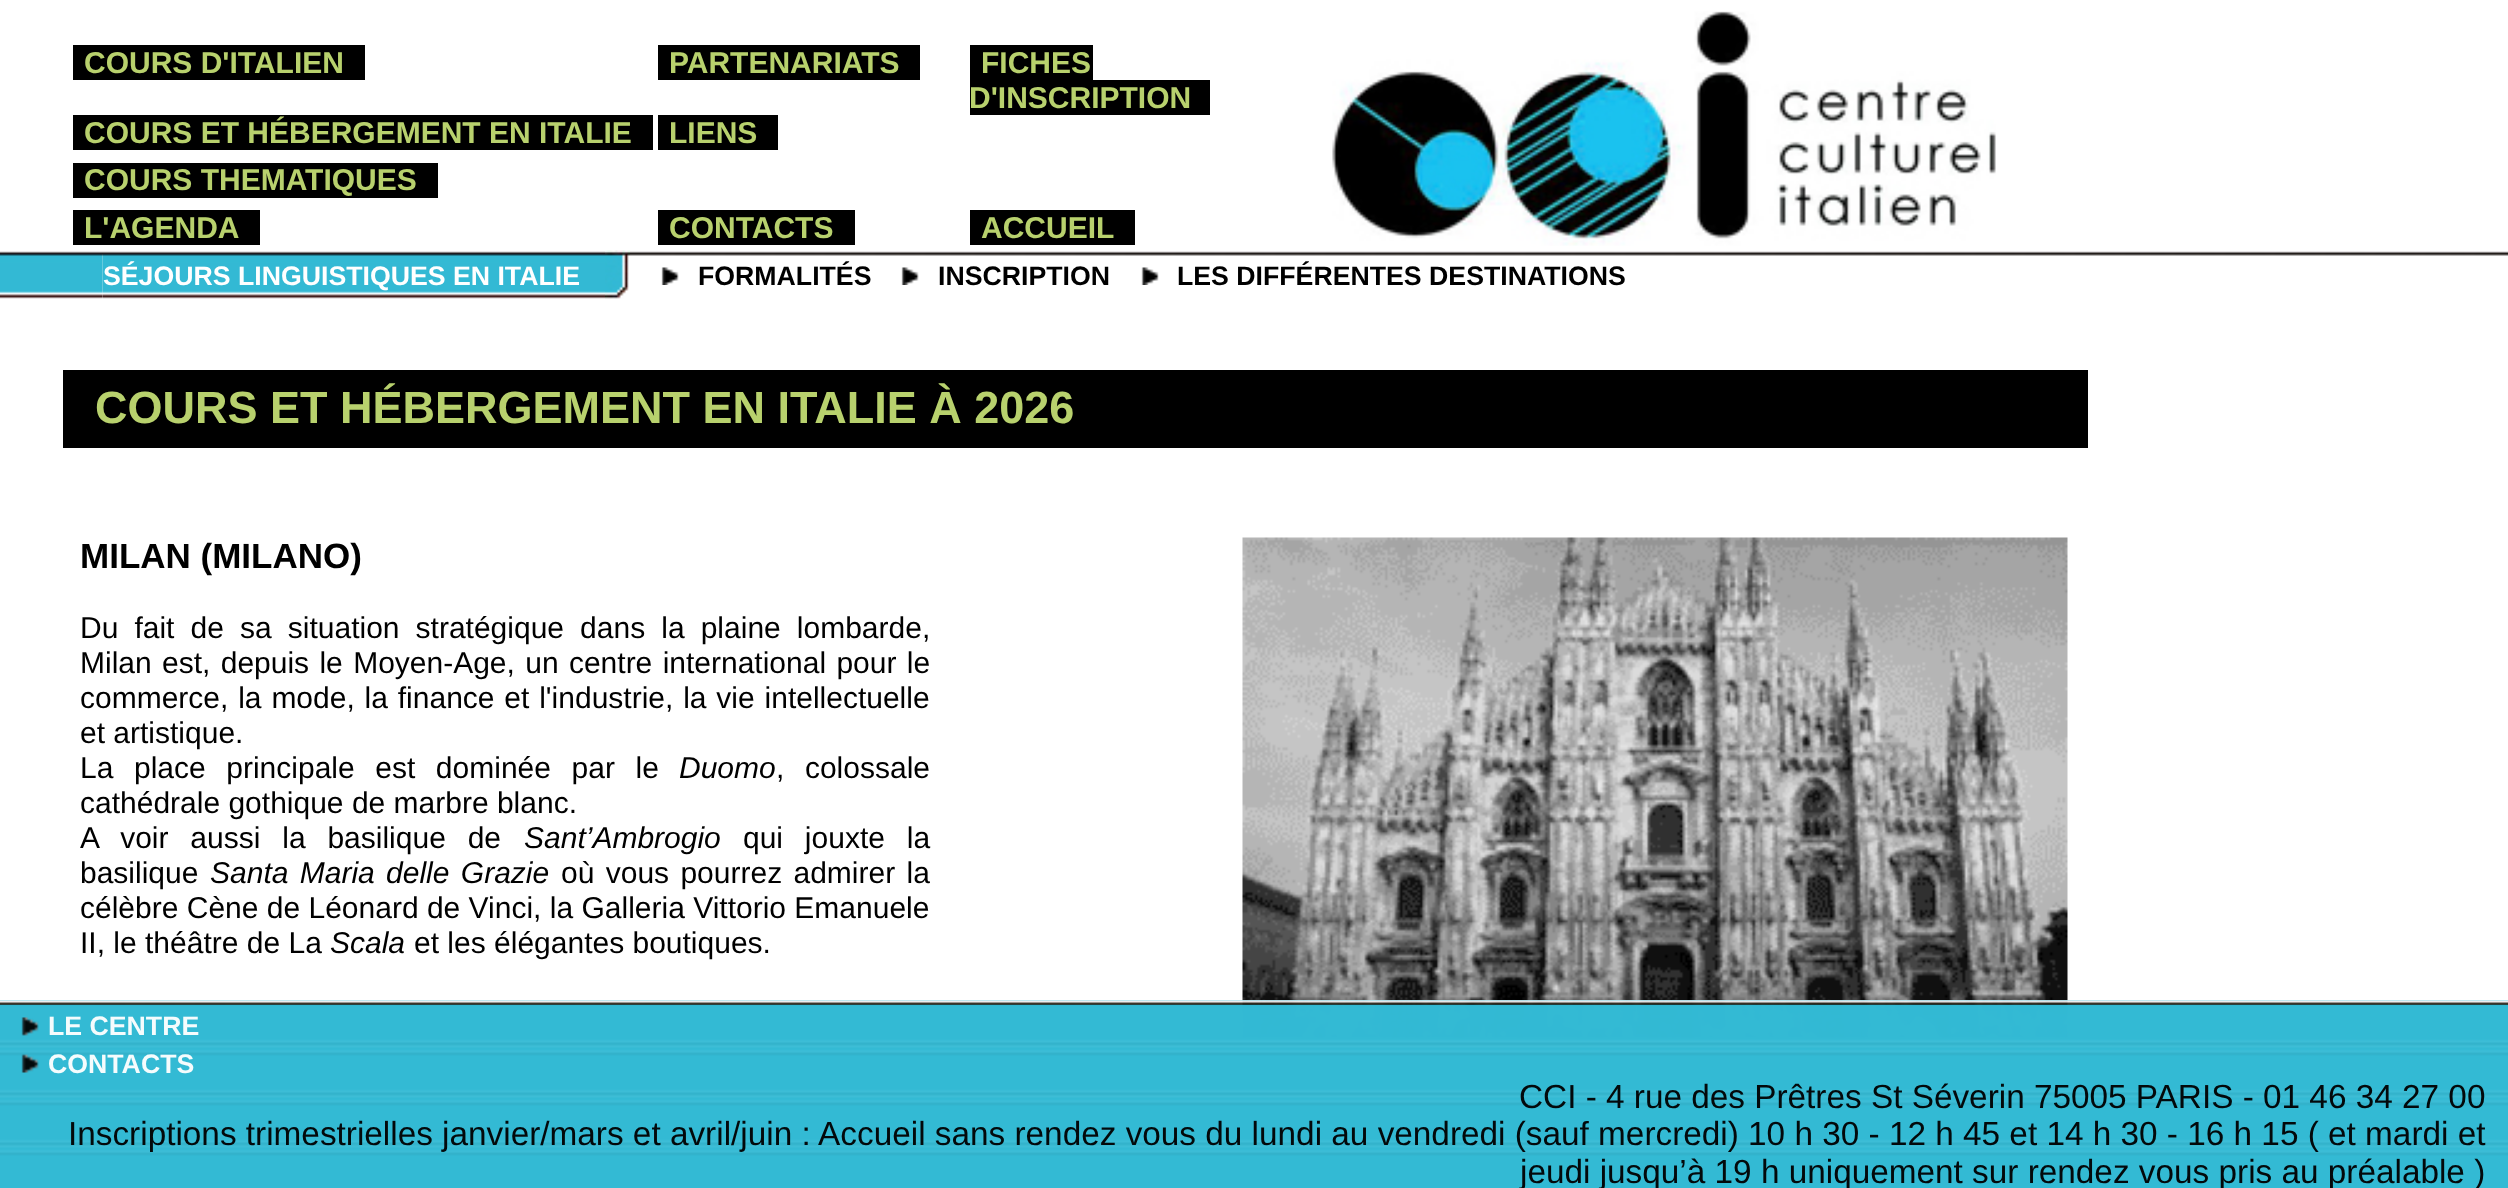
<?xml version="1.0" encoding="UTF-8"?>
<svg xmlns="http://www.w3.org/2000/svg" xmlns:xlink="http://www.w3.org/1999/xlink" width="2508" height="1188">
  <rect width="100%" height="100%" fill="#ffffff" />
  <rect x="73" y="45" width="292" height="35" fill="#000000" />
  <rect x="658" y="45" width="262" height="35" fill="#000000" />
  <rect x="970" y="45" width="123" height="35" fill="#000000" />
  <rect x="970" y="80" width="240" height="35" fill="#000000" />
  <image x="1332" y="11" width="664" height="235" xlink:href="image1.png" />
  <rect x="73" y="115" width="580" height="35" fill="#000000" />
  <rect x="658" y="115" width="120" height="35" fill="#000000" />
  <rect x="73" y="163" width="365" height="35" fill="#000000" />
  <rect x="73" y="210" width="187" height="35" fill="#000000" />
  <rect x="658" y="210" width="197" height="35" fill="#000000" />
  <rect x="970" y="210" width="165" height="35" fill="#000000" />
  <image x="0" y="251" width="2508" height="5" xlink:href="image2.png" />
  <image x="0" y="253" width="103" height="46" xlink:href="image3.png" />
  <image x="102" y="253" width="503" height="46" xlink:href="image4.png" />
  <image x="605" y="250" width="25" height="49" xlink:href="image5.png" />
  <image x="661" y="267" width="18" height="18" xlink:href="image6.png" />
  <image x="901" y="267" width="18" height="18" xlink:href="image6.png" />
  <image x="1141" y="267" width="18" height="18" xlink:href="image7.png" />
  <rect x="63" y="370" width="2025" height="78" fill="#000000" />
  <image x="1242" y="537" width="826" height="501" xlink:href="image8.png" />
  <image x="0" y="1000" width="2508" height="188" xlink:href="image9.png" />
  <rect y="1005" width="2508" height="183" fill="#33b9d4" fill-opacity="0.95" />
  <image x="21" y="1017" width="18" height="19" xlink:href="image10.png" />
  <image x="21" y="1054" width="18" height="19" xlink:href="image11.png" />
  <text x="84" y="73" style="font-family: Liberation Sans; font-size: 30px; font-weight: bold; fill: #b8d16d">COURS D'ITALIEN</text>
  <text x="669" y="73" style="font-family: Liberation Sans; font-size: 30px; font-weight: bold; fill: #b8d16d">PARTENARIATS</text>
  <text x="981" y="73" style="font-family: Liberation Sans; font-size: 30px; font-weight: bold; fill: #b8d16d">FICHES</text>
  <text x="969" y="108" style="font-family: Liberation Sans; font-size: 30px; font-weight: bold; fill: #b8d16d">D'INSCRIPTION</text>
  <text x="84" y="143" style="font-family: Liberation Sans; font-size: 30px; font-weight: bold; fill: #b8d16d">COURS ET HÉBERGEMENT EN ITALIE</text>
  <text x="669" y="143" style="font-family: Liberation Sans; font-size: 30px; font-weight: bold; fill: #b8d16d">LIENS</text>
  <text x="84" y="190" style="font-family: Liberation Sans; font-size: 30px; font-weight: bold; fill: #b8d16d">COURS THEMATIQUES</text>
  <text x="84" y="238" style="font-family: Liberation Sans; font-size: 30px; font-weight: bold; fill: #b8d16d">L'AGENDA</text>
  <text x="669" y="238" style="font-family: Liberation Sans; font-size: 30px; font-weight: bold; fill: #b8d16d">CONTACTS</text>
  <text x="981" y="238" style="font-family: Liberation Sans; font-size: 30px; font-weight: bold; fill: #b8d16d">ACCUEIL</text>
  <text x="103" y="285" style="font-family: Liberation Sans; font-size: 26.7px; font-weight: bold; fill: #ffffff">SÉJOURS LINGUISTIQUES EN ITALIE</text>
  <text x="698" y="285" style="font-family: Liberation Sans; font-size: 26.7px; font-weight: bold; fill: #000000">FORMALITÉS</text>
  <text x="938" y="285" style="font-family: Liberation Sans; font-size: 26.7px; font-weight: bold; fill: #000000">INSCRIPTION</text>
  <text x="1177" y="285" style="font-family: Liberation Sans; font-size: 26.7px; font-weight: bold; fill: #000000">LES DIFFÉRENTES DESTINATIONS</text>
  <text x="95" y="423" style="font-family: Liberation Sans; font-size: 45px; font-weight: bold; fill: #b8d16d">COURS ET HÉBERGEMENT EN ITALIE À 2026</text>
  <text x="80" y="568" style="font-family: Liberation Sans; font-size: 35px; font-weight: bold; fill: #000000">MILAN (MILANO)</text>
  <text x="80" y="638" word-spacing="7.75" style="font-family: Liberation Sans; font-size: 30px; fill: #000000">Du fait de sa situation stratégique dans la plaine lombarde,</text>
  <text x="80" y="673" word-spacing="2" style="font-family: Liberation Sans; font-size: 30px; fill: #000000">Milan est, depuis le Moyen-Age, un centre international pour le</text>
  <text x="80" y="708" word-spacing="1.5" style="font-family: Liberation Sans; font-size: 30px; fill: #000000">commerce, la mode, la finance et l'industrie, la vie intellectuelle</text>
  <text x="80" y="743" style="font-family: Liberation Sans; font-size: 30px; fill: #000000">et artistique.</text>
  <text x="80" y="778" word-spacing="12.25" style="font-family: Liberation Sans; font-size: 30px; fill: #000000">La place principale est dominée par le</text>
  <text x="679" y="778" style="font-family: Liberation Sans; font-size: 30px; font-style: italic; fill: #000000">Duomo</text>
  <text x="776" y="778" word-spacing="12.25" style="font-family: Liberation Sans; font-size: 30px; fill: #000000">, colossale</text>
  <text x="80" y="813" style="font-family: Liberation Sans; font-size: 30px; fill: #000000">cathédrale gothique de marbre blanc.</text>
  <text x="80" y="848" word-spacing="13.5" style="font-family: Liberation Sans; font-size: 30px; fill: #000000">A voir aussi la basilique de</text>
  <text x="524" y="848" style="font-family: Liberation Sans; font-size: 30px; font-style: italic; fill: #000000">Sant’Ambrogio</text>
  <text x="743" y="848" word-spacing="13.5" style="font-family: Liberation Sans; font-size: 30px; fill: #000000">qui jouxte la</text>
  <text x="80" y="883" style="font-family: Liberation Sans; font-size: 30px; fill: #000000">basilique</text>
  <text x="210" y="883" word-spacing="3" style="font-family: Liberation Sans; font-size: 30px; font-style: italic; fill: #000000">Santa Maria delle Grazie</text>
  <text x="561" y="883" word-spacing="3" style="font-family: Liberation Sans; font-size: 30px; fill: #000000">où vous pourrez admirer la</text>
  <text x="80" y="918" style="font-family: Liberation Sans; font-size: 30px; fill: #000000">célèbre Cène de Léonard de Vinci, la Galleria Vittorio Emanuele</text>
  <text x="80" y="953" style="font-family: Liberation Sans; font-size: 30px; fill: #000000">II, le théâtre de La</text>
  <text x="330" y="953" style="font-family: Liberation Sans; font-size: 30px; font-style: italic; fill: #000000">Scala</text>
  <text x="414" y="953" style="font-family: Liberation Sans; font-size: 30px; fill: #000000">et les élégantes boutiques.</text>
  <text x="48" y="1035" style="font-family: Liberation Sans; font-size: 26.7px; font-weight: bold; fill: #f5fcfd">LE CENTRE</text>
  <text x="48" y="1073" style="font-family: Liberation Sans; font-size: 26.7px; font-weight: bold; fill: #f5fcfd">CONTACTS</text>
  <text x="1519" y="1108" style="font-family: Liberation Sans; font-size: 33.33px; fill: #03090b">CCI - 4 rue des Prêtres St Séverin 75005 PARIS - 01 46 34 27 00</text>
  <text x="68" y="1145" style="font-family: Liberation Sans; font-size: 33.33px; fill: #03090b">Inscriptions trimestrielles janvier/mars et avril/juin : Accueil sans rendez vous du lundi au vendredi (sauf mercredi) 10 h 30 - 12 h 45 et 14 h 30 - 16 h 15 ( et mardi et</text>
  <text x="1520" y="1183" style="font-family: Liberation Sans; font-size: 33.33px; fill: #03090b">jeudi jusqu’à 19 h uniquement sur rendez vous pris au préalable )</text>
</svg>
